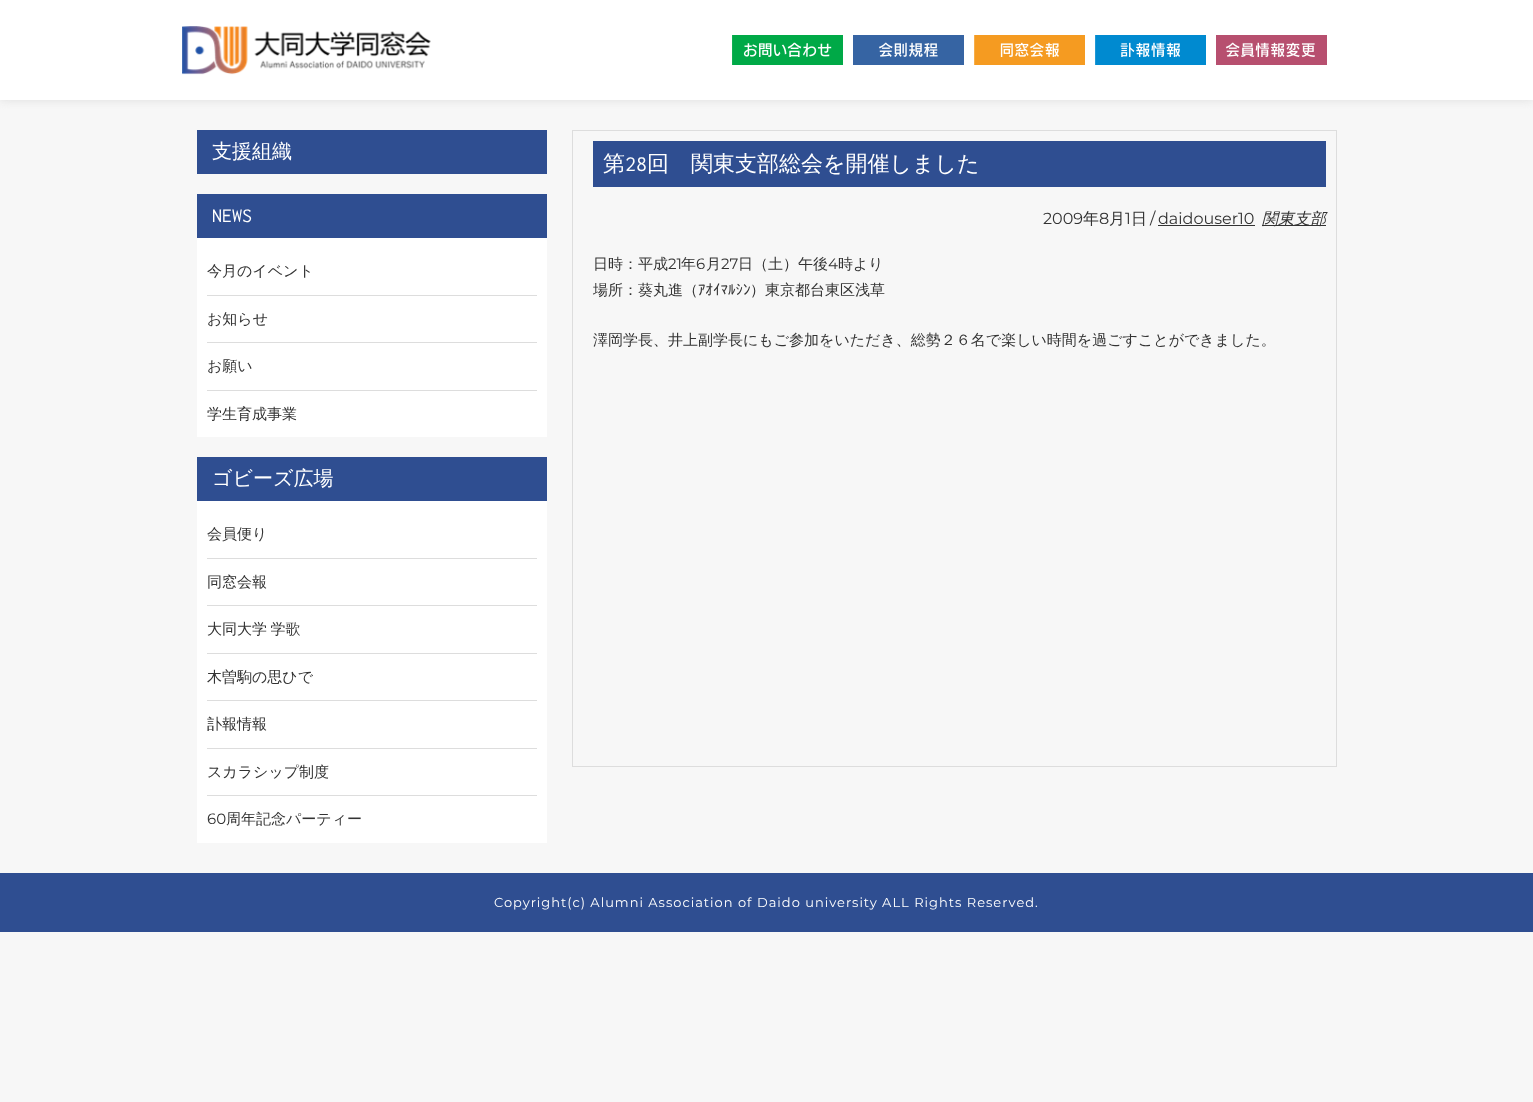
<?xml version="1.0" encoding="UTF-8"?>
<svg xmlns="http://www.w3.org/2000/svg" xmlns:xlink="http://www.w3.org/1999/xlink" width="1533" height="1102">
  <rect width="100%" height="100%" fill="#f7f7f7" />
  <rect width="1533" height="100" fill="#dddddd" filter="blur(5px)" />
  <rect width="1533" height="100" fill="#ffffff" />
  <image x="182" y="26" width="249" height="49" xlink:href="image1.png" />
  <image x="732" y="35" width="111" height="30" xlink:href="image2.png" />
  <image x="853" y="35" width="111" height="30" xlink:href="image3.png" />
  <image x="974" y="35" width="111" height="30" xlink:href="image4.png" />
  <image x="1095" y="35" width="111" height="30" xlink:href="image5.png" />
  <image x="1216" y="35" width="111" height="30" xlink:href="image6.png" />
  <rect x="197" y="130" width="350" height="44" fill="#2f4e91" />
  <rect x="197" y="238" width="350" height="199" fill="#ffffff" />
  <rect x="197" y="194" width="350" height="44" fill="#2f4e91" />
  <rect x="207" y="295" width="330" height="1" fill="#dddddd" />
  <rect x="207" y="342" width="330" height="1" fill="#dddddd" />
  <rect x="207" y="390" width="330" height="1" fill="#dddddd" />
  <rect x="197" y="501" width="350" height="342" fill="#ffffff" />
  <rect x="197" y="457" width="350" height="44" fill="#2f4e91" />
  <rect x="207" y="558" width="330" height="1" fill="#dddddd" />
  <rect x="207" y="605" width="330" height="1" fill="#dddddd" />
  <rect x="207" y="653" width="330" height="1" fill="#dddddd" />
  <rect x="207" y="700" width="330" height="1" fill="#dddddd" />
  <rect x="207" y="748" width="330" height="1" fill="#dddddd" />
  <rect x="207" y="795" width="330" height="1" fill="#dddddd" />
  <rect x="572.5" y="130.5" width="764" height="636" fill="none" stroke="#dddddd" />
  <rect x="593" y="141" width="733" height="46" fill="#2f4e91" />
  <rect x="1158" y="225" width="97" height="1" fill="#333333" />
  <rect x="1262" y="225" width="64" height="1" fill="#333333" />
  <rect y="873" width="1533" height="59" fill="#2f4e91" />
  <text x="212" y="158" style="font-family: WenQuanYi Zen Hei; font-size: 20px; font-weight: 500; fill: #ffffff">支援組織</text>
  <text x="212" y="222" style="font-family: Inconsolata; font-size: 20px; fill: #ffffff">NEWS</text>
  <text x="207" y="276" style="font-family: WenQuanYi Zen Hei; font-size: 15px; font-weight: 500; fill: #333333">今月のイベント</text>
  <text x="207" y="324" style="font-family: WenQuanYi Zen Hei; font-size: 15px; font-weight: 500; fill: #333333">お知らせ</text>
  <text x="207" y="371" style="font-family: WenQuanYi Zen Hei; font-size: 15px; font-weight: 500; fill: #333333">お願い</text>
  <text x="207" y="419" style="font-family: WenQuanYi Zen Hei; font-size: 15px; font-weight: 500; fill: #333333">学生育成事業</text>
  <text x="212" y="485" style="font-family: WenQuanYi Zen Hei; font-size: 20px; font-weight: 500; fill: #ffffff">ゴビーズ広場</text>
  <text x="207" y="539" style="font-family: WenQuanYi Zen Hei; font-size: 15px; font-weight: 500; fill: #333333">会員便り</text>
  <text x="207" y="587" style="font-family: WenQuanYi Zen Hei; font-size: 15px; font-weight: 500; fill: #333333">同窓会報</text>
  <text x="207" y="634" word-spacing="-1" style="font-family: WenQuanYi Zen Hei; font-size: 15px; font-weight: 500; fill: #333333">大同大学 学歌</text>
  <text x="207" y="682" style="font-family: WenQuanYi Zen Hei; font-size: 15px; font-weight: 500; fill: #333333">⽊曽駒の思ひで</text>
  <text x="207" y="729" style="font-family: WenQuanYi Zen Hei; font-size: 15px; font-weight: 500; fill: #333333">訃報情報</text>
  <text x="207" y="777" style="font-family: WenQuanYi Zen Hei; font-size: 15px; font-weight: 500; fill: #333333">スカラシップ制度</text>
  <text x="207" y="824" style="font-family: Montserrat; font-size: 15px; fill: #333333">60</text>
  <text x="226" y="824" style="font-family: WenQuanYi Zen Hei; font-size: 15px; font-weight: 500; fill: #333333">周年記念パーティー</text>
  <text x="603" y="171" style="font-family: WenQuanYi Zen Hei; font-size: 22px; font-weight: 500; fill: #ffffff">第</text>
  <text x="625" y="171" style="font-family: Inconsolata; font-size: 22px; fill: #ffffff">28</text>
  <text x="647" y="171" style="font-family: WenQuanYi Zen Hei; font-size: 22px; font-weight: 500; fill: #ffffff">回　関東支部総会を開催しました</text>
  <text x="1043" y="224" style="font-family: Montserrat; font-size: 16px; fill: #333333">2009</text>
  <text x="1083" y="224" style="font-family: WenQuanYi Zen Hei; font-size: 16px; font-weight: 500; fill: #333333">年</text>
  <text x="1099" y="224" style="font-family: Montserrat; font-size: 16px; fill: #333333">8</text>
  <text x="1109" y="224" style="font-family: WenQuanYi Zen Hei; font-size: 16px; font-weight: 500; fill: #333333">月</text>
  <text x="1125" y="224" style="font-family: Montserrat; font-size: 16px; fill: #333333">1</text>
  <text x="1131" y="224" style="font-family: WenQuanYi Zen Hei; font-size: 16px; font-weight: 500; fill: #333333">日</text>
  <text x="1150" y="224" style="font-family: Montserrat; font-size: 16px; fill: #333333">/</text>
  <text x="1158" y="224" style="font-family: Montserrat; font-size: 16px; fill: #333333">daidouser10</text>
  <text x="1262" y="224" style="font-family: WenQuanYi Zen Hei; font-size: 16px; font-weight: 500; font-style: italic; fill: #333333">関東支部</text>
  <text x="593" y="269" style="font-family: WenQuanYi Zen Hei; font-size: 15px; font-weight: 500; fill: #333333">日時：平成</text>
  <text x="668" y="269" style="font-family: Montserrat; font-size: 15px; fill: #333333">21</text>
  <text x="681" y="269" style="font-family: WenQuanYi Zen Hei; font-size: 15px; font-weight: 500; fill: #333333">年</text>
  <text x="696" y="269" style="font-family: Montserrat; font-size: 15px; fill: #333333">6</text>
  <text x="706" y="269" style="font-family: WenQuanYi Zen Hei; font-size: 15px; font-weight: 500; fill: #333333">月</text>
  <text x="721" y="269" style="font-family: Montserrat; font-size: 15px; fill: #333333">27</text>
  <text x="738" y="269" style="font-family: WenQuanYi Zen Hei; font-size: 15px; font-weight: 500; fill: #333333">日（土）午後</text>
  <text x="828" y="269" style="font-family: Montserrat; font-size: 15px; fill: #333333">4</text>
  <text x="838" y="269" style="font-family: WenQuanYi Zen Hei; font-size: 15px; font-weight: 500; fill: #333333">時より</text>
  <text x="593" y="295" style="font-family: WenQuanYi Zen Hei; font-size: 15px; font-weight: 500; fill: #333333">場所：葵丸進（</text>
  <text x="698" y="295" style="font-family: IPAPGothic; font-size: 15px; fill: #333333">ｱｵｲﾏﾙｼﾝ</text>
  <text x="750" y="295" style="font-family: WenQuanYi Zen Hei; font-size: 15px; font-weight: 500; fill: #333333">）東京都台東区浅草</text>
  <text x="593" y="345" style="font-family: WenQuanYi Zen Hei; font-size: 15px; font-weight: 500; fill: #333333">澤岡学長、井上副学長にもご参加をいただき、総勢２６名で楽しい時間を過ごすことができました。</text>
  <text x="494" y="907" style="font-family: Montserrat; font-size: 13px; letter-spacing: 1px; fill: #ffffff">Copyright(c) Alumni Association of Daido university ALL Rights Reserved.</text>
</svg>
